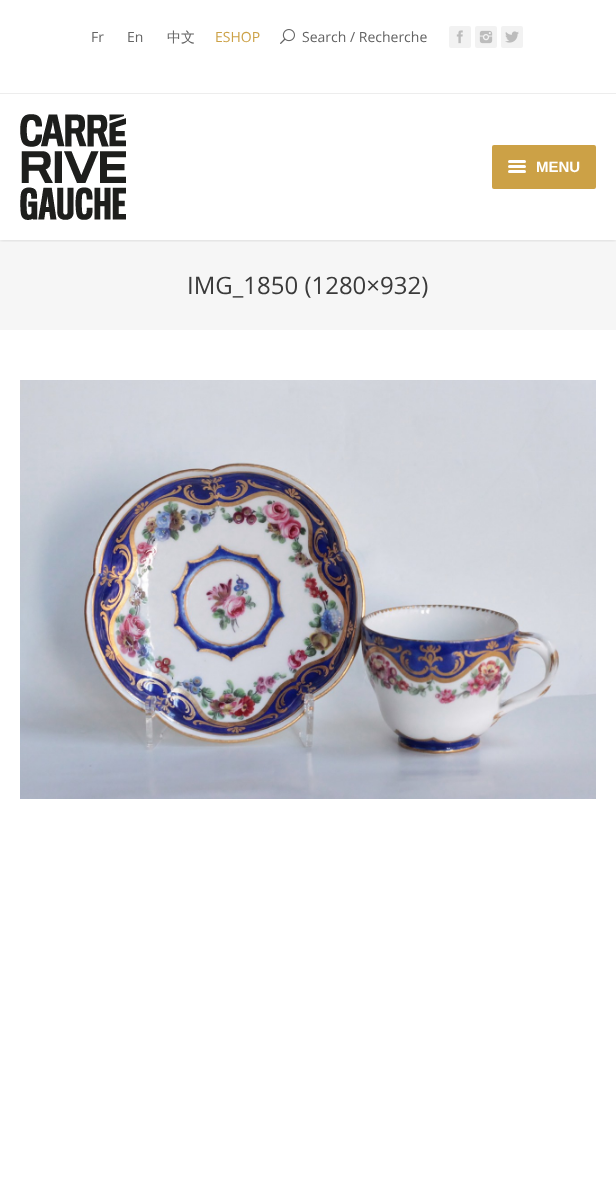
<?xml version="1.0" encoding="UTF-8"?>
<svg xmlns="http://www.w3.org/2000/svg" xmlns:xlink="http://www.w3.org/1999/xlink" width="616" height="1198">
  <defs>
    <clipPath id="clip1"><rect x="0" y="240" width="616" height="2" /></clipPath>
  </defs>
  <rect width="100%" height="100%" fill="#ffffff" />
  <rect y="240" width="616" height="90" fill="#f6f6f6" />
  <g clip-path="url(#clip1)">
    <rect width="616" height="240" fill="#000000" fill-opacity="0.15" filter="blur(2px)" />
  </g>
  <rect y="93" width="616" height="1" fill="#ededed" />
  <image x="280" y="29" width="15" height="15" xlink:href="image1.png" />
  <rect x="449" y="26" width="22" height="22" rx="2" fill="#f2f2f2" />
  <image x="456" y="30" width="7" height="14" xlink:href="image2.png" />
  <rect x="475" y="26" width="22" height="22" rx="2" fill="#f2f2f2" />
  <image x="479" y="30" width="14" height="14" xlink:href="image3.png" />
  <rect x="501" y="26" width="22" height="22" rx="2" fill="#f2f2f2" />
  <image x="505" y="31" width="14" height="12" xlink:href="image4.png" />
  <image x="20" y="114" width="106" height="106" xlink:href="image5.png" />
  <rect x="492" y="145" width="104" height="44" rx="2" fill="#cca146" />
  <rect x="508" y="165" width="18" height="3" rx="1.5" fill="#ffffff" />
  <rect x="508" y="160" width="18" height="3" rx="1.5" fill="#ffffff" />
  <rect x="508" y="170" width="18" height="3" rx="1.5" fill="#ffffff" />
  <image x="20" y="380" width="576" height="419" xlink:href="image6.png" />
  <text x="91" y="42" style="font-family: Open Sans; font-size: 14px; fill: #636363">Fr</text>
  <text x="127" y="42" style="font-family: Open Sans; font-size: 14px; fill: #636363">En</text>
  <text x="167" y="42" style="font-family: WenQuanYi Zen Hei; font-size: 14px; font-weight: 500; fill: #636363">中文</text>
  <text x="215" y="42" style="font-family: Open Sans; font-size: 14px; fill: #cca146">ESHOP</text>
  <text x="302" y="42" style="font-family: Open Sans; font-size: 14px; fill: #636363">Search / Recherche</text>
  <text x="536" y="172" style="font-family: Liberation Sans; font-size: 15px; font-weight: bold; fill: #ffffff">MENU</text>
  <text x="187" y="294" style="font-family: Open Sans; font-size: 24px; fill: #3a3a3a">IMG_1850 (1280×932)</text>
</svg>
